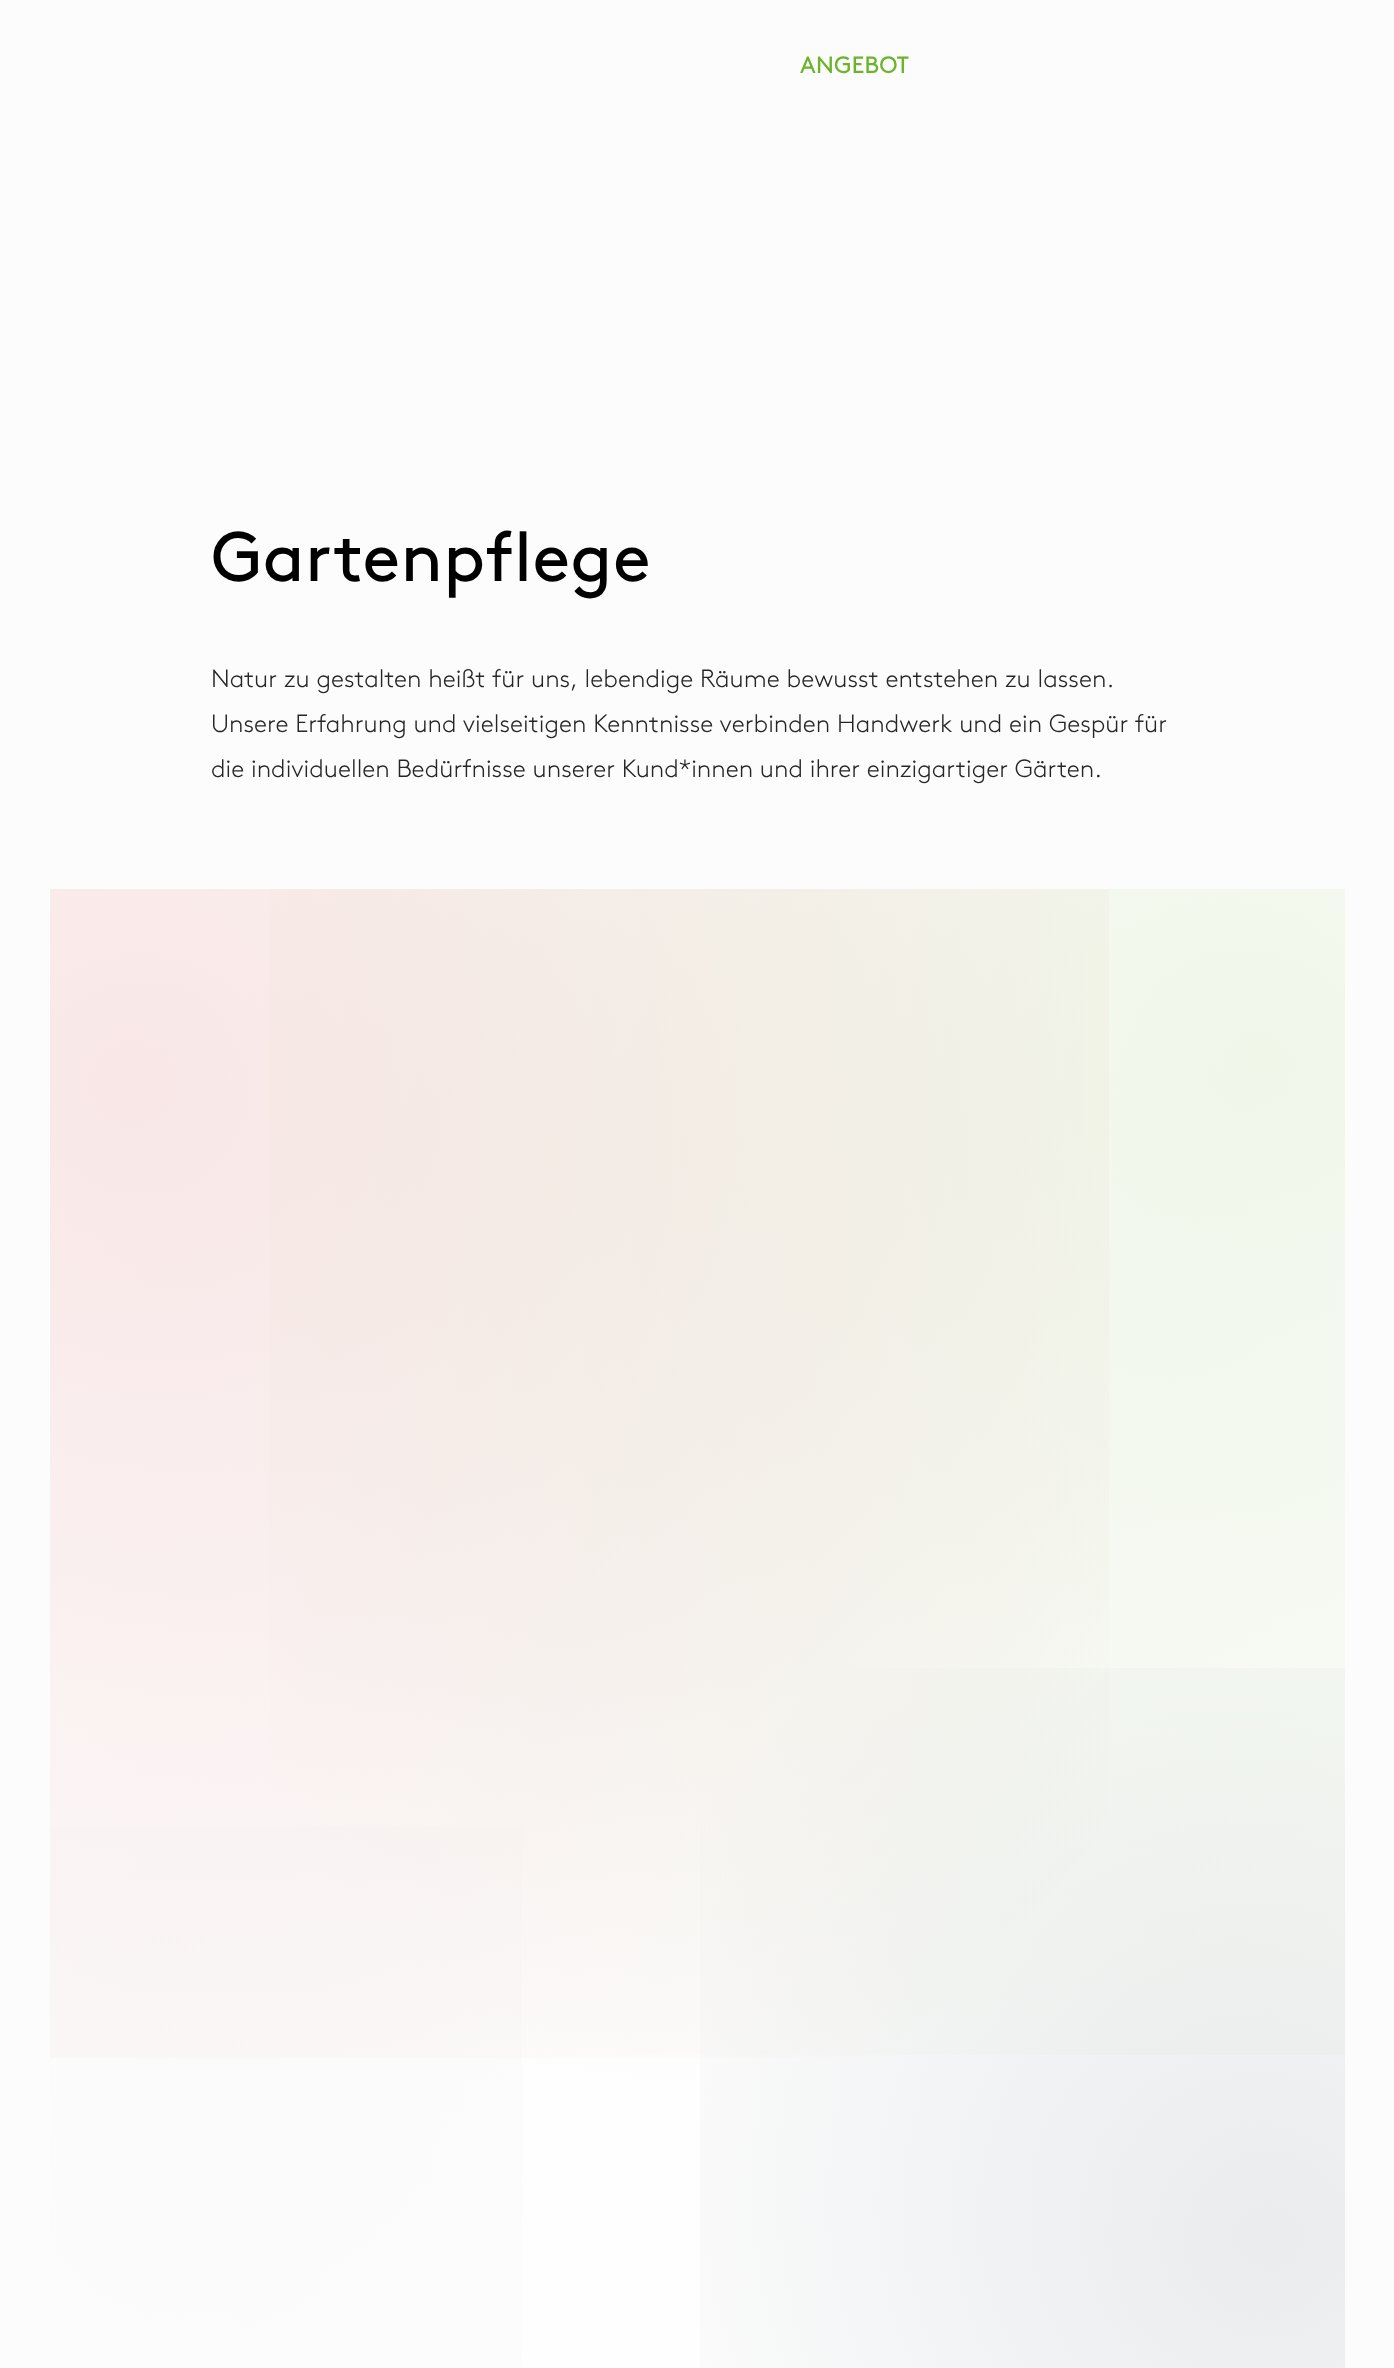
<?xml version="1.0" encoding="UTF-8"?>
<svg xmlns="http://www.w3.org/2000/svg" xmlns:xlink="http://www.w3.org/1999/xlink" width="1394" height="2368">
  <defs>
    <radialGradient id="g1" gradientUnits="userSpaceOnUse" cx="683" cy="1635" r="1008"><stop offset="0" stop-color="#fcfcfc" /><stop offset="1" stop-color="#ffffff" /></radialGradient>
    <radialGradient id="g2" gradientUnits="userSpaceOnUse" cx="1263" cy="1061" r="1804"><stop offset="0" stop-color="#6db42d" stop-opacity="0.1" /><stop offset="0.7" stop-color="#6db42d" stop-opacity="0" /></radialGradient>
    <radialGradient id="g3" gradientUnits="userSpaceOnUse" cx="130" cy="1079" r="1792"><stop offset="0" stop-color="#c71212" stop-opacity="0.1" /><stop offset="0.7" stop-color="#c71212" stop-opacity="0" /></radialGradient>
    <radialGradient id="g4" gradientUnits="userSpaceOnUse" cx="134" cy="2216" r="1796"><stop offset="0" stop-color="#dbdbdb" stop-opacity="0.1" /><stop offset="0.5" stop-color="#dbdbdb" stop-opacity="0" /></radialGradient>
    <radialGradient id="g5" gradientUnits="userSpaceOnUse" cx="1272" cy="2240" r="1822"><stop offset="0" stop-color="#324158" stop-opacity="0.1" /><stop offset="0.4" stop-color="#324158" stop-opacity="0" /></radialGradient>
  </defs>
  <rect width="100%" height="100%" fill="#fcfcfc" />
  <rect x="50" y="889" width="1295" height="1479" fill="url(#g1)" />
  <rect x="269" y="889" width="1076" height="1166" fill="url(#g2)" />
  <rect x="50" y="889" width="1059" height="1169" fill="url(#g3)" />
  <rect x="50" y="1827" width="472" height="541" fill="url(#g4)" />
  <rect x="700" y="1668" width="645" height="700" fill="url(#g5)" />
  <text x="800" y="73" style="font-family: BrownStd; font-size: 23.75px; fill: #6db42d">ANGEBOT</text>
  <text x="211" y="581" style="font-family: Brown; font-size: 70px; fill: #000000">Gartenpflege</text>
  <text x="211" y="687" style="font-family: Brown; font-size: 25px; font-weight: 300; fill: #262626">Natur zu gestalten heißt für uns, lebendige Räume bewusst entstehen zu lassen.</text>
  <text x="211" y="732" style="font-family: Brown; font-size: 25px; font-weight: 300; fill: #262626">Unsere Erfahrung und vielseitigen Kenntnisse verbinden Handwerk und ein Gespür für</text>
  <text x="211" y="777" style="font-family: Brown; font-size: 25px; font-weight: 300; fill: #262626">die individuellen Bedürfnisse unserer Kund*innen und ihrer einzigartiger Gärten.</text>
</svg>
